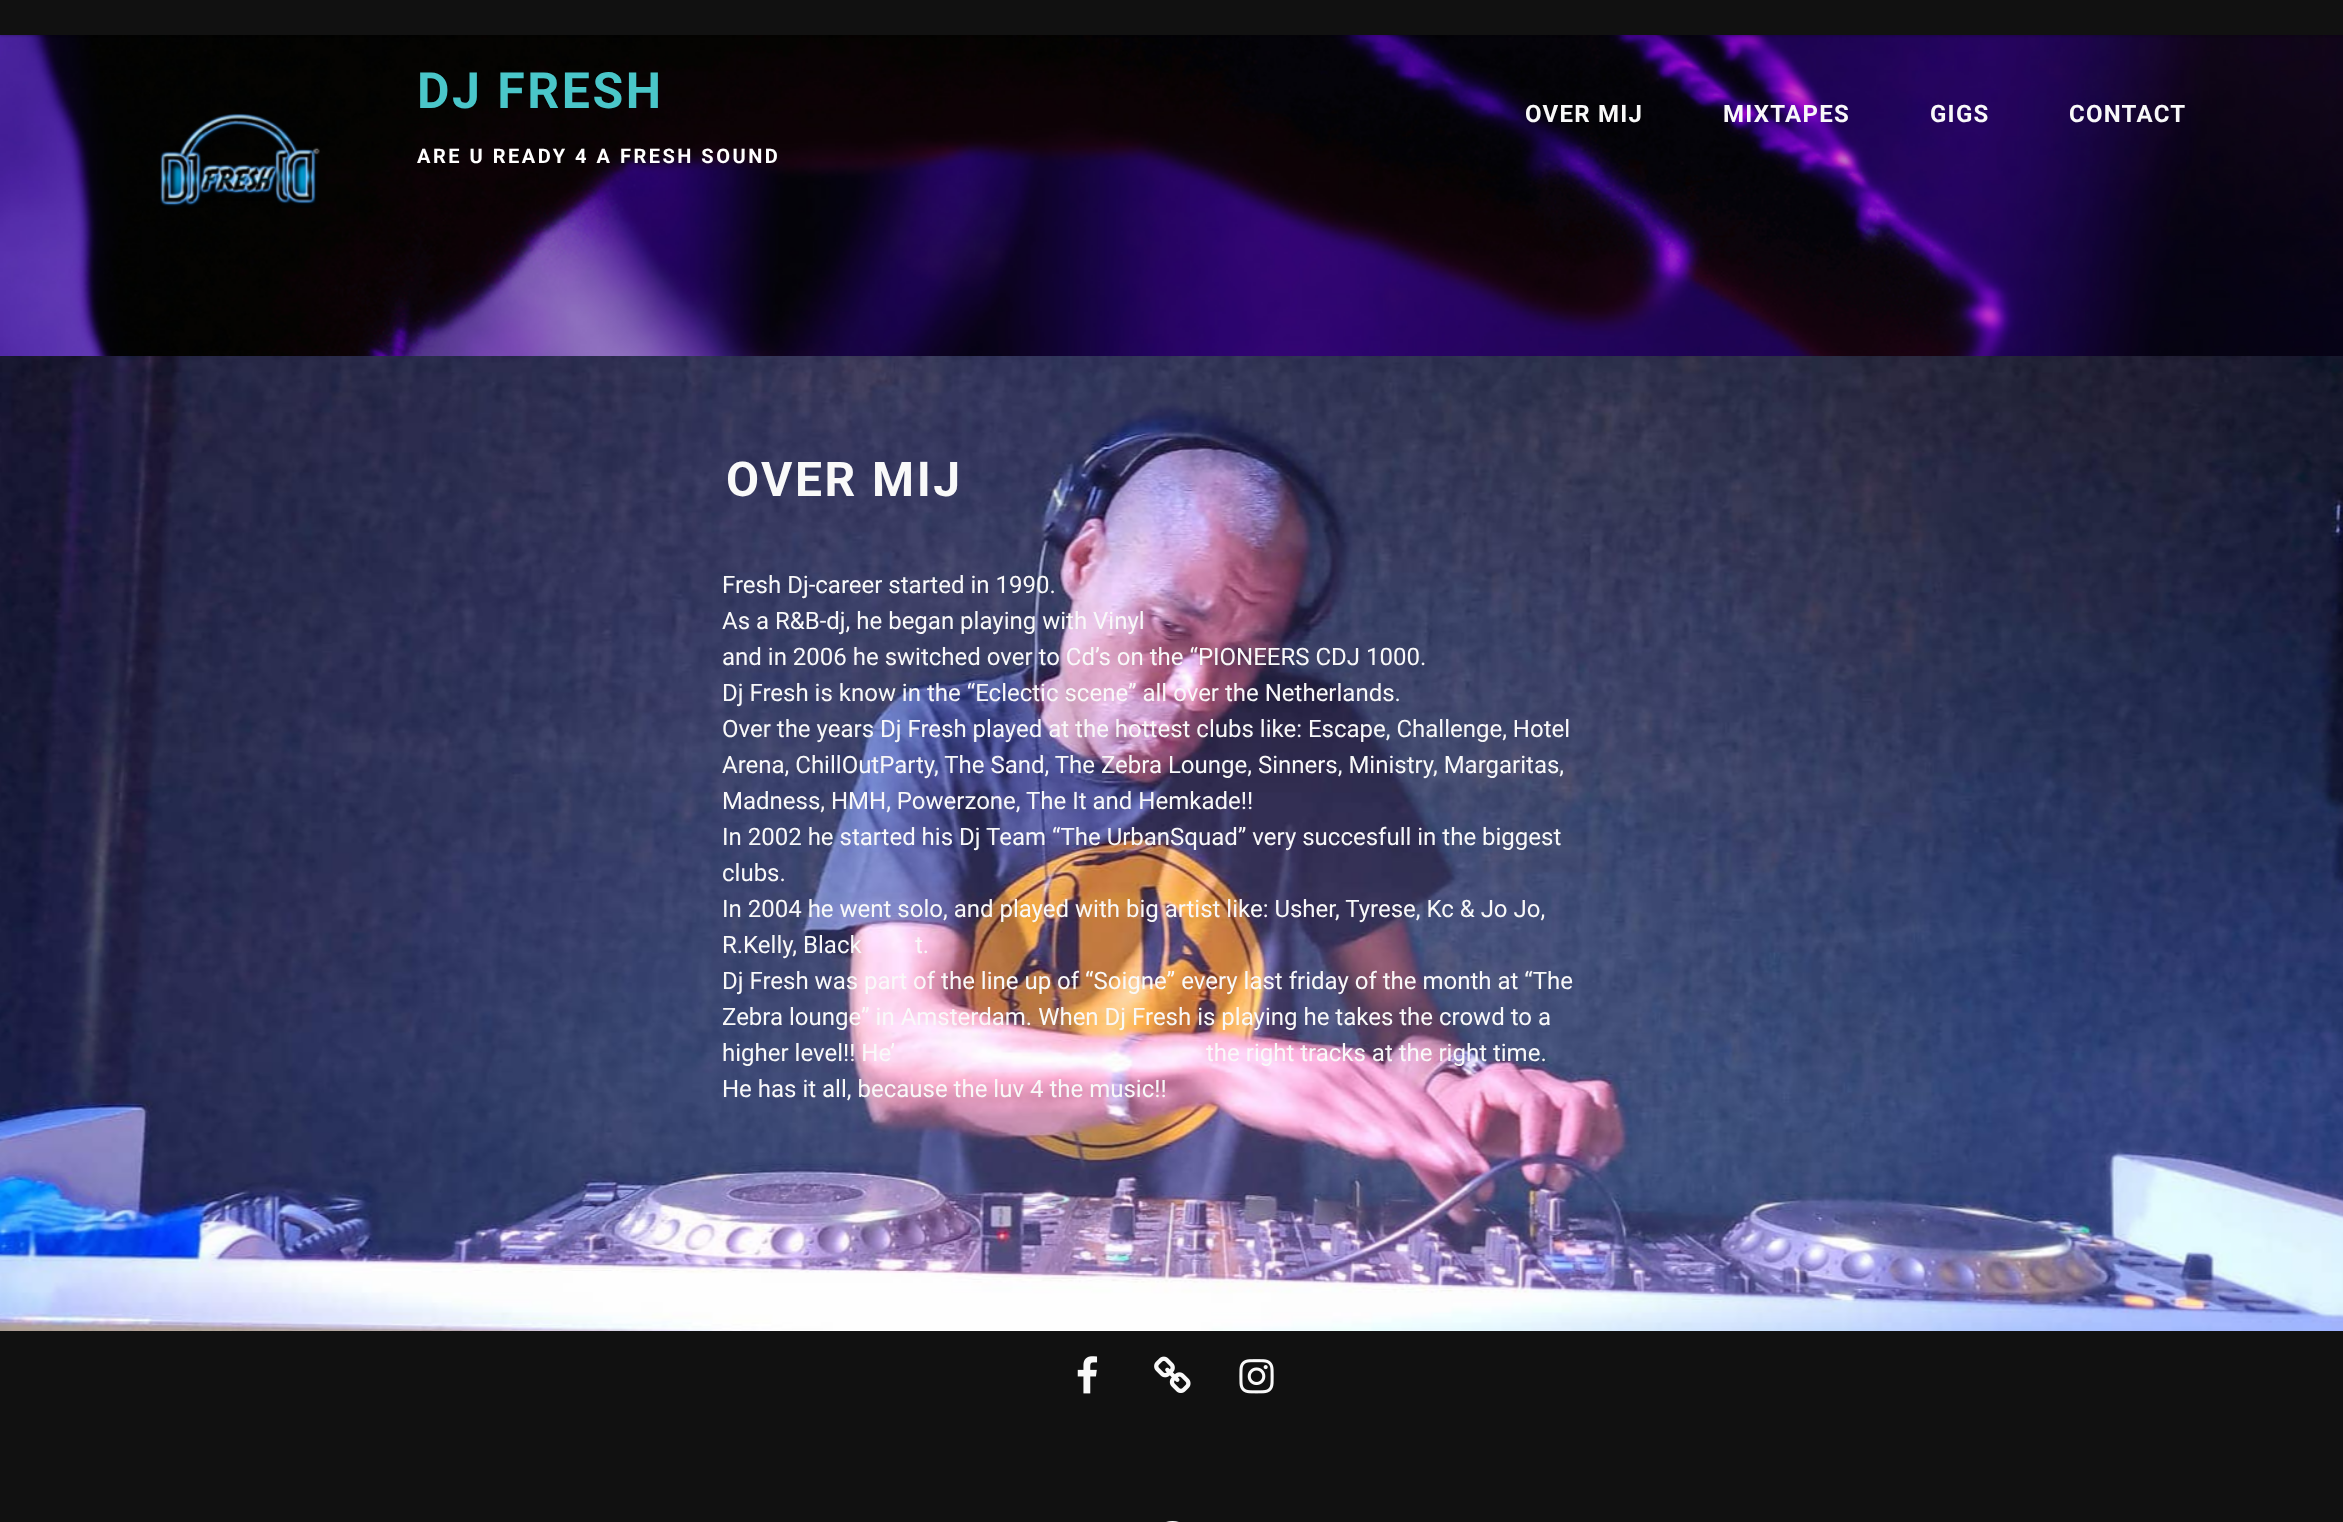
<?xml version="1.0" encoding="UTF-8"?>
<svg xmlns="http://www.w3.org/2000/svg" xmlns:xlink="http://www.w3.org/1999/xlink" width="2343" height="1522">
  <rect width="100%" height="100%" fill="#ffffff" />
  <image x="0" y="356" width="2343" height="975" xlink:href="image1.png" />
  <image x="0" y="35" width="2343" height="321" xlink:href="image2.png" />
  <rect y="1" width="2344" height="35" fill="#000000" fill-opacity="0.2" filter="blur(1px)" />
  <rect width="2343" height="35" fill="#111111" />
  <image x="160" y="113" width="160" height="95" xlink:href="image3.png" />
  <rect y="1331" width="2343" height="191" fill="#111111" />
  <image x="1077" y="1356" width="21" height="38" xlink:href="image4.png" />
  <image x="1154" y="1356" width="37" height="37" xlink:href="image5.png" />
  <image x="1239" y="1359" width="35" height="35" xlink:href="image6.png" />
  <rect x="1160" y="1521" width="25" height="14" rx="12.5" fill="#f9f9f9" />
  <text x="417" y="108" style="font-family: Roboto; font-size: 50px; font-weight: bold; letter-spacing: 2.5px; fill: #4ac6c9">DJ FRESH</text>
  <text x="417" y="163" style="font-family: Roboto; font-size: 20px; font-weight: bold; letter-spacing: 2.5px; fill: #ffffff">ARE U READY 4 A FRESH SOUND</text>
  <text x="1525" y="122" style="font-family: Roboto; font-size: 24px; font-weight: bold; letter-spacing: 1.25px; fill: #f9f9f9">OVER MIJ</text>
  <text x="1723" y="122" style="font-family: Roboto; font-size: 24px; font-weight: bold; letter-spacing: 1.25px; fill: #f9f9f9">MIXTAPES</text>
  <text x="1930" y="122" style="font-family: Roboto; font-size: 24px; font-weight: bold; letter-spacing: 1.25px; fill: #f9f9f9">GIGS</text>
  <text x="2069" y="122" style="font-family: Roboto; font-size: 24px; font-weight: bold; letter-spacing: 1.25px; fill: #f9f9f9">CONTACT</text>
  <text x="726" y="496" style="font-family: Roboto; font-size: 48px; font-weight: bold; letter-spacing: 2.5px; fill: #f9f9f9">OVER MIJ</text>
  <text x="722" y="593" style="font-family: Roboto; font-size: 24px; fill: #f9f9f9">Fresh Dj-career started in 1990.</text>
  <text x="722" y="629" style="font-family: Roboto; font-size: 24px; fill: #f9f9f9">As a R&amp;B-dj, he began playing with Vinyl</text>
  <text x="722" y="665" style="font-family: Roboto; font-size: 24px; fill: #f9f9f9">and in 2006 he switched over to Cd’s on the “PIONEERS CDJ 1000.</text>
  <text x="722" y="701" style="font-family: Roboto; font-size: 24px; fill: #f9f9f9">Dj Fresh is know in the “Eclectic scene” all over the Netherlands.</text>
  <text x="722" y="737" style="font-family: Roboto; font-size: 24px; fill: #f9f9f9">Over the years Dj Fresh played at the hottest clubs like: Escape, Challenge, Hotel</text>
  <text x="722" y="773" style="font-family: Roboto; font-size: 24px; fill: #f9f9f9">Arena, ChillOutParty, The Sand, The Zebra Lounge, Sinners, Ministry, Margaritas,</text>
  <text x="722" y="809" style="font-family: Roboto; font-size: 24px; fill: #f9f9f9">Madness, HMH, Powerzone, The It and Hemkade!!</text>
  <text x="722" y="845" style="font-family: Roboto; font-size: 24px; fill: #f9f9f9">In 2002 he started his Dj Team “The UrbanSquad” very succesfull in the biggest</text>
  <text x="722" y="881" style="font-family: Roboto; font-size: 24px; fill: #f9f9f9">clubs.</text>
  <text x="722" y="917" style="font-family: Roboto; font-size: 24px; fill: #f9f9f9">In 2004 he went solo, and played with big artist like: Usher, Tyrese, Kc &amp; Jo Jo,</text>
  <text x="722" y="953" style="font-family: Roboto; font-size: 24px; fill: #f9f9f9">R.Kelly, Black</text>
  <text x="915" y="953" style="font-family: Roboto; font-size: 24px; fill: #f9f9f9">t.</text>
  <text x="722" y="989" style="font-family: Roboto; font-size: 24px; fill: #f9f9f9">Dj Fresh was part of the line up of “Soigne” every last friday of the month at “The</text>
  <text x="722" y="1025" style="font-family: Roboto; font-size: 24px; fill: #f9f9f9">Zebra lounge” in Amsterdam. When Dj Fresh is playing he takes the crowd to a</text>
  <text x="722" y="1061" style="font-family: Roboto; font-size: 24px; fill: #f9f9f9">higher level!! He’</text>
  <text x="1206" y="1061" style="font-family: Roboto; font-size: 24px; fill: #f9f9f9">the right tracks at the right time.</text>
  <text x="722" y="1097" style="font-family: Roboto; font-size: 24px; fill: #f9f9f9">He has it all, because the luv 4 the music!!</text>
</svg>
